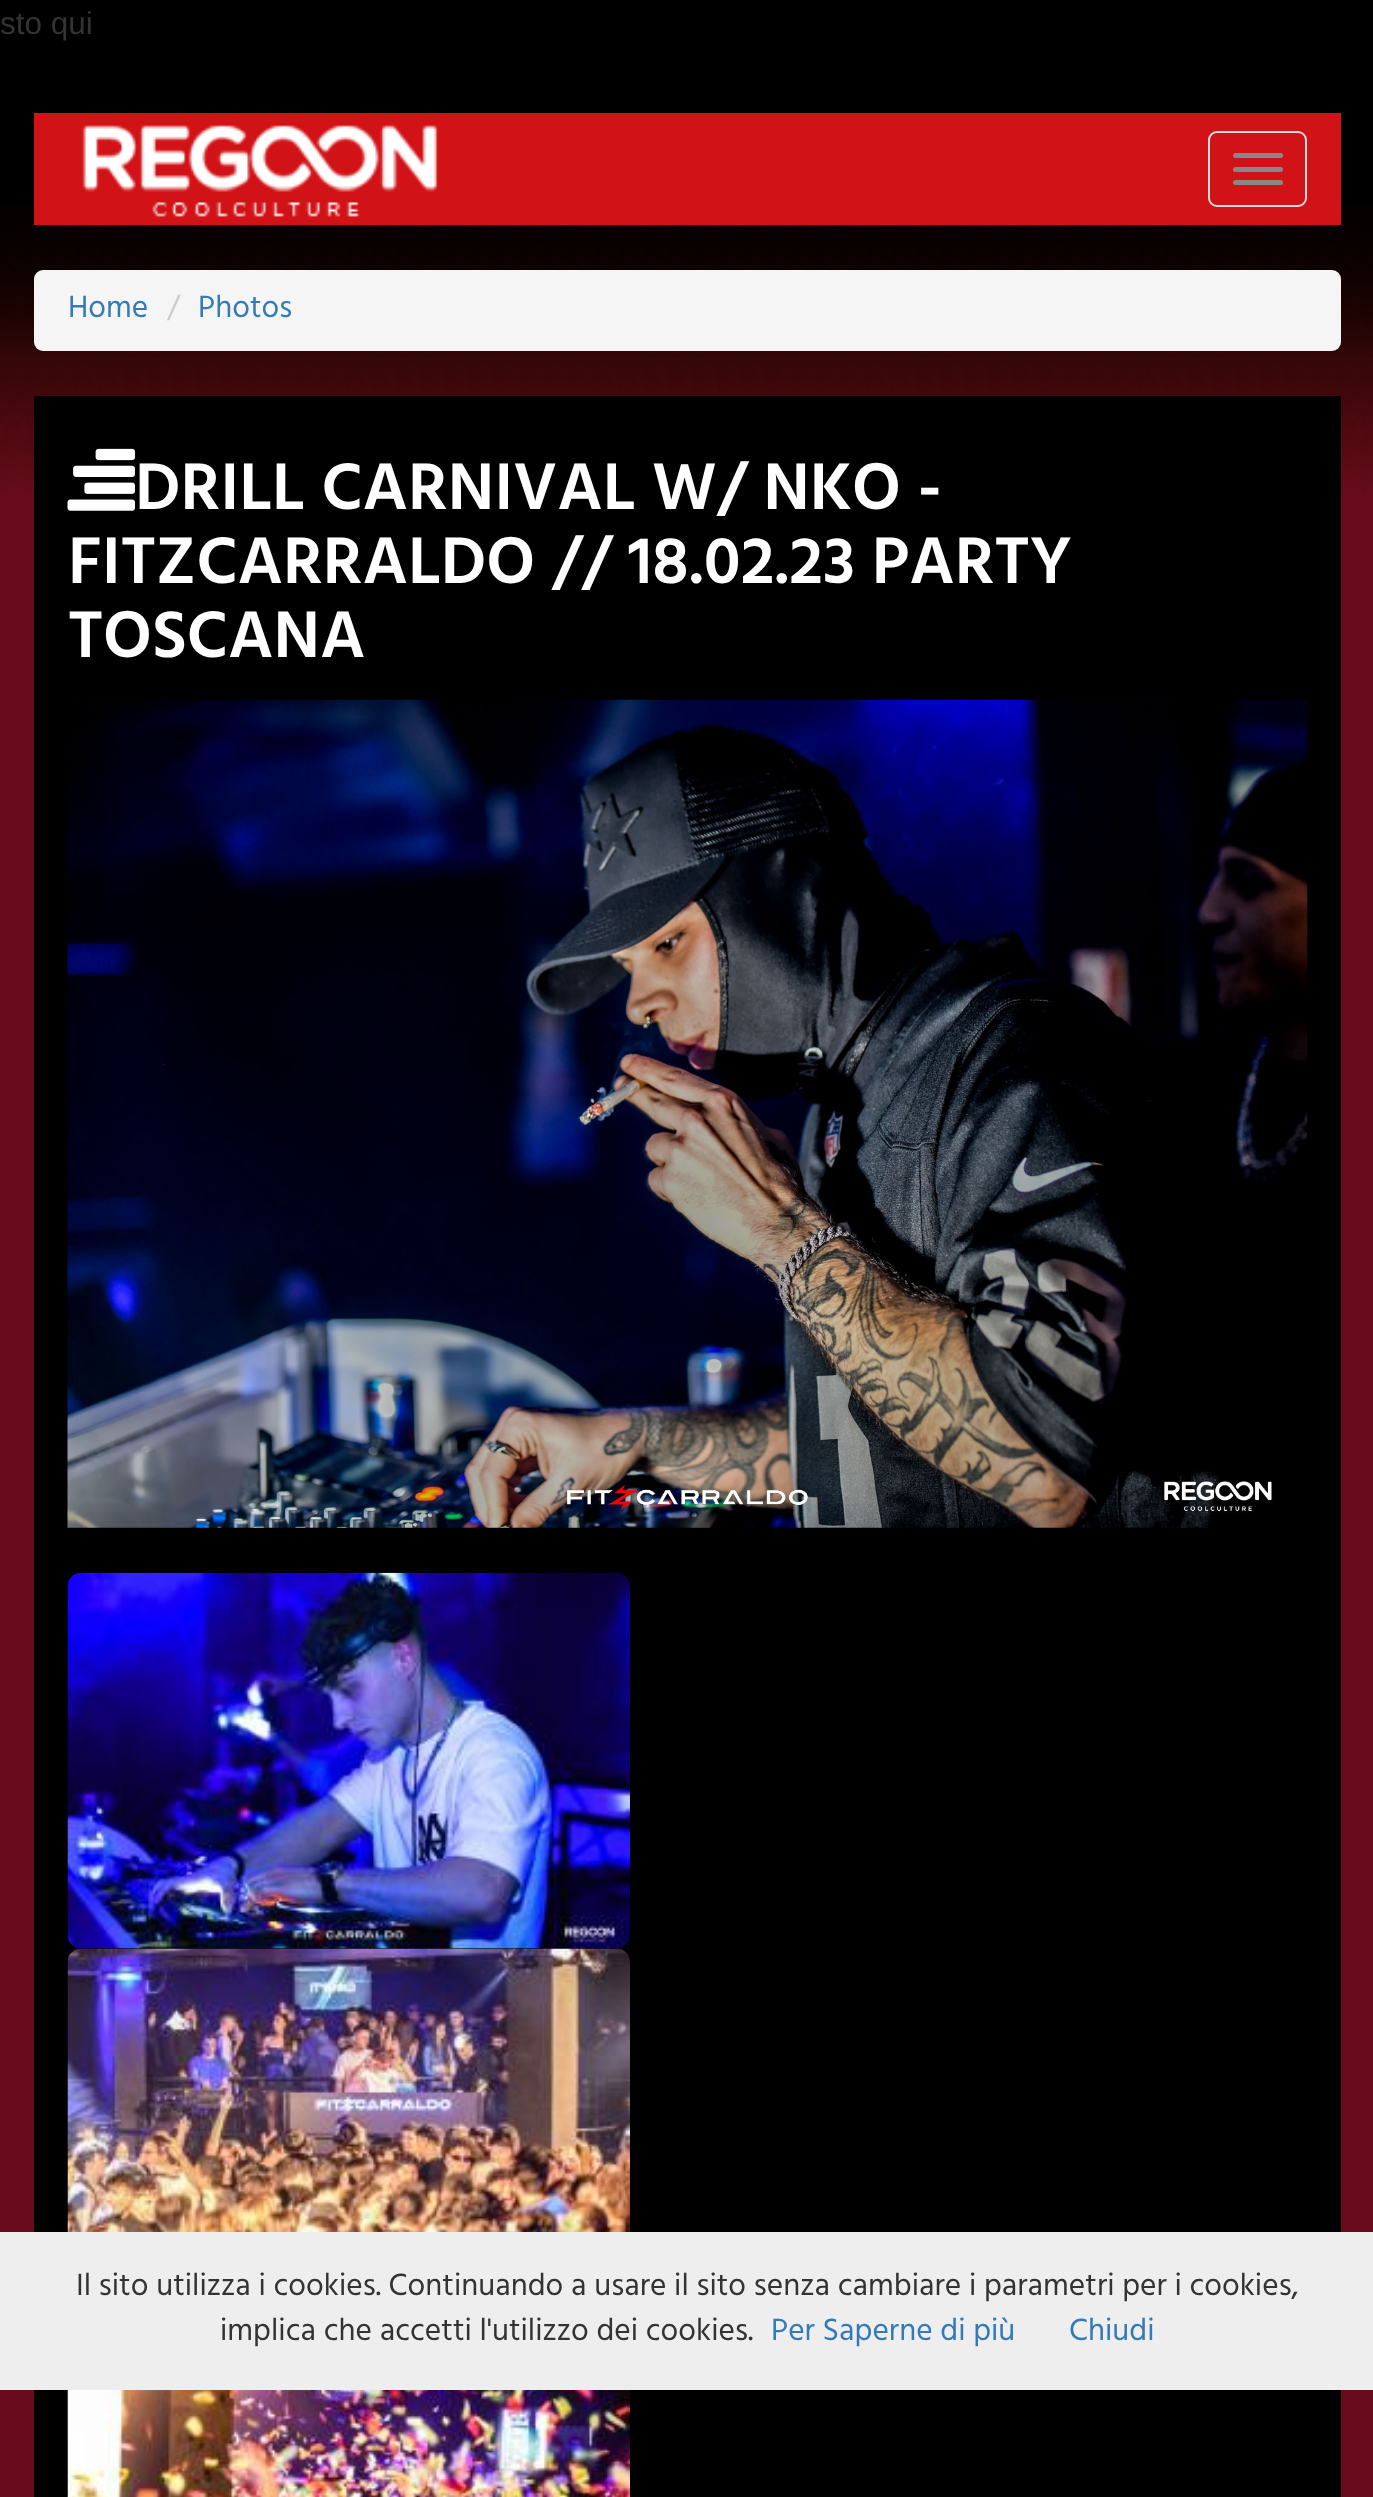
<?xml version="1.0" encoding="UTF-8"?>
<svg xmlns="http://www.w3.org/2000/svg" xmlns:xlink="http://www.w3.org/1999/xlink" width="1373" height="2497">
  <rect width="100%" height="100%" fill="#690b1c" />
  <image x="0" y="0" width="1373" height="497" xlink:href="image1.png" />
  <rect x="34" y="113" width="1307" height="112" fill="#d11216" />
  <image x="82" y="125" width="356" height="92" xlink:href="image2.png" />
  <rect x="1209" y="132" width="97" height="74" rx="8" fill="none" stroke="#dddddd" stroke-width="2" />
  <rect x="1233" y="153" width="50" height="5" rx="2.5" fill="#888888" />
  <rect x="1233" y="167" width="50" height="5" rx="2.5" fill="#888888" />
  <rect x="1233" y="180" width="50" height="5" rx="2.5" fill="#888888" />
  <rect x="34" y="270" width="1307" height="81" rx="9" fill="#f5f5f5" />
  <rect x="34" y="396" width="1307" height="2101" fill="#000000" />
  <image x="67" y="448" width="68" height="63" xlink:href="image3.png" />
  <image x="67" y="699" width="1241" height="829" xlink:href="image4.png" />
  <image x="67" y="1572" width="563" height="377" xlink:href="image5.png" />
  <image x="67" y="1948" width="563" height="284" xlink:href="image6.png" />
  <image x="67" y="2390" width="563" height="107" xlink:href="image7.png" />
  <rect y="2232" width="1373" height="158" fill="#eeeeee" />
  <text x="0" y="34" style="font-family: Liberation Sans; font-size: 31.5px; fill: #333333">sto qui</text>
  <text x="68" y="317" style="font-family: Hind; font-size: 31.5px; fill: #337ab7">Home</text>
  <text x="167" y="317" style="font-family: Hind; font-size: 31.5px; fill: #cccccc">/</text>
  <text x="198" y="317" style="font-family: Hind; font-size: 31.5px; fill: #337ab7">Photos</text>
  <text x="135" y="509" style="font-family: Hind; font-size: 67.5px; font-weight: 600; fill: #ffffff">DRILL CARNIVAL W/ NKO -</text>
  <text x="68" y="583" style="font-family: Hind; font-size: 67.5px; font-weight: 600; fill: #ffffff">FITZCARRALDO // 18.02.23 PARTY</text>
  <text x="68" y="657" style="font-family: Hind; font-size: 67.5px; font-weight: 600; fill: #ffffff">TOSCANA</text>
  <text x="76" y="2295" style="font-family: Hind; font-size: 31.5px; fill: #333333">Il sito utilizza i cookies. Continuando a usare il sito senza cambiare i parametri per i cookies,</text>
  <text x="220" y="2340" style="font-family: Hind; font-size: 31.5px; fill: #333333">implica che accetti l'utilizzo dei cookies.</text>
  <text x="771" y="2340" style="font-family: Hind; font-size: 31.5px; fill: #337ab7">Per Saperne di più</text>
  <text x="1069" y="2340" style="font-family: Hind; font-size: 31.5px; fill: #337ab7">Chiudi</text>
</svg>
